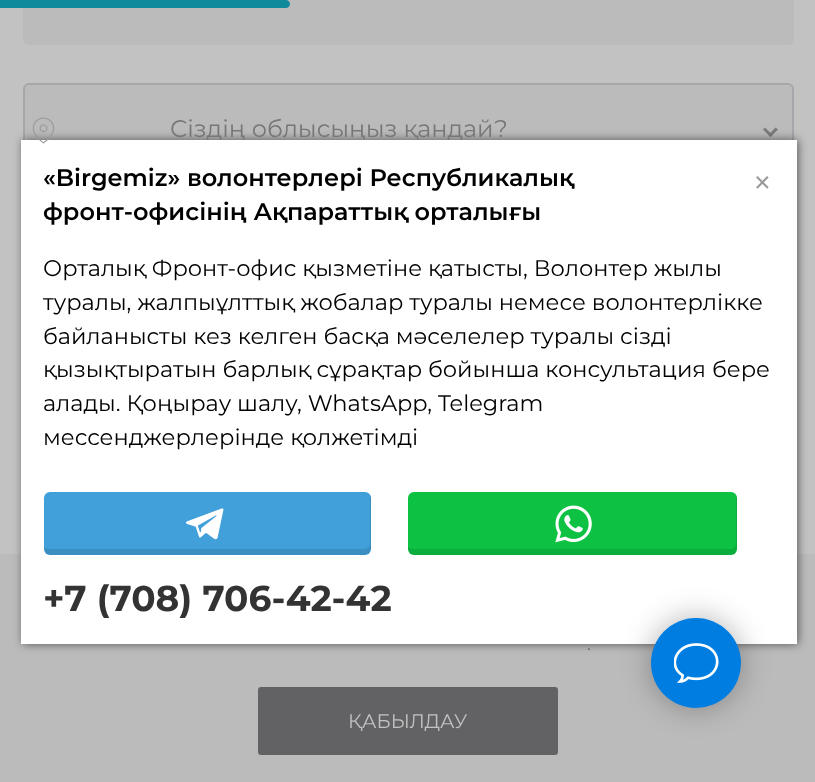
<?xml version="1.0" encoding="UTF-8"?>
<svg xmlns="http://www.w3.org/2000/svg" xmlns:xlink="http://www.w3.org/1999/xlink" width="815" height="782">
  <rect width="100%" height="100%" fill="#c2c2c2" />
  <rect x="23" y="-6" width="771" height="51" rx="6" fill="#bbbbbb" />
  <path d="M 0 0 h 286 c 2 0 4 2 4 4 c 0 2 -2 4 -4 4 h -286 z" fill="#0f8a9d" />
  <rect x="24" y="84" width="769" height="94" rx="5" fill="#bbbbbb" stroke="#a7a7ab" stroke-width="2" />
  <path d="M 775.5 127.5 l 2.5 2 l -7.5 7.5 l -2 -2 z" fill="#7a7a7a" />
  <path d="M 765 127.5 l 7.5 7.5 l -2 2 l -7.5 -7.5 z" fill="#7a7a7a" />
  <rect y="554" width="815" height="228" fill="#bbbbbc" />
  <rect x="23" y="140" width="775" height="504" fill="#323232" fill-opacity="0.75" filter="blur(5px)" />
  <rect x="258" y="687" width="300" height="68" rx="3" fill="#626265" />
  <text x="170" y="137" style="font-family: Montserrat; font-size: 24px; fill: #777777">Сіздің облысыңыз қандай?</text>
  <rect x="21" y="140" width="776" height="504" fill="#ffffff" />
  <image x="32" y="117" width="23" height="27" xlink:href="image1.png" />
  <text x="43" y="186" style="font-family: Montserrat; font-size: 24px; font-weight: 600; fill: #000000">«Birgemiz» волонтерлері Республикалық</text>
  <text x="43" y="220" style="font-family: Montserrat; font-size: 24px; font-weight: 600; fill: #000000">фронт-офисінің Ақпараттық орталығы</text>
  <text x="752" y="195" style="font-family: Montserrat; font-size: 36px; fill: #999999">×</text>
  <text x="43" y="276" style="font-family: Montserrat; font-size: 22.5px; fill: #000000">Орталық Фронт-офис қызметіне қатысты, Волонтер жылы</text>
  <text x="43" y="310" style="font-family: Montserrat; font-size: 22.5px; fill: #000000">туралы, жалпыұлттық жобалар туралы немесе волонтерлікке</text>
  <text x="43" y="344" style="font-family: Montserrat; font-size: 22.5px; fill: #000000">байланысты кез келген басқа мәселелер туралы сізді</text>
  <text x="43" y="377" style="font-family: Montserrat; font-size: 22.5px; fill: #000000">қызықтыратын барлық сұрақтар бойынша консультация бере</text>
  <text x="43" y="411" style="font-family: Montserrat; font-size: 22.5px; fill: #000000">алады. Қоңырау шалу, WhatsApp, Telegram</text>
  <text x="43" y="445" style="font-family: Montserrat; font-size: 22.5px; fill: #000000">мессенджерлерінде қолжетімді</text>
  <rect x="44" y="492" width="327" height="63" rx="6" fill="#419fd9" />
  <path d="M 44 547 v 2 c 0 3 3 6 6 6 h 315 c 3 0 6 -3 6 -6 v -51 c 0 -1 0 -2 -1 -3 v 48 c 0 4 -3 6 -6 6 h -315 c -2 0 -4 -1 -5 -2 z" fill="#000000" fill-opacity="0.1" />
  <image x="186" y="508" width="38" height="32" xlink:href="image2.png" />
  <rect x="408" y="492" width="329" height="63" rx="6" fill="#0dc143" />
  <path d="M 408 547 v 2 c 0 3 3 6 6 6 h 317 c 3 0 6 -3 6 -6 v -51 c 0 -1 0 -2 -1 -3 v 48 c 0 4 -3 6 -6 6 h -317 c -2 0 -4 -1 -5 -2 z" fill="#000000" fill-opacity="0.1" />
  <image x="555" y="505" width="37" height="38" xlink:href="image3.png" />
  <text x="43" y="611" style="font-family: Montserrat; font-size: 36px; font-weight: bold; fill: #333333">+7 (708) 706-42-42</text>
  <text x="587" y="650" style="font-family: Montserrat; font-size: 18px; fill: #626265">.</text>
  <text x="348" y="728" style="font-family: Montserrat; font-size: 19.5px; fill: #c2c2c2">ҚАБЫЛДАУ</text>
  <rect x="651" y="618" width="90" height="90" rx="45" fill="#000000" fill-opacity="0.3" filter="blur(15px)" />
  <circle cx="696" cy="663" r="45" fill="#007de0" />
  <image x="674" y="643" width="45" height="40" xlink:href="image4.png" />
</svg>
